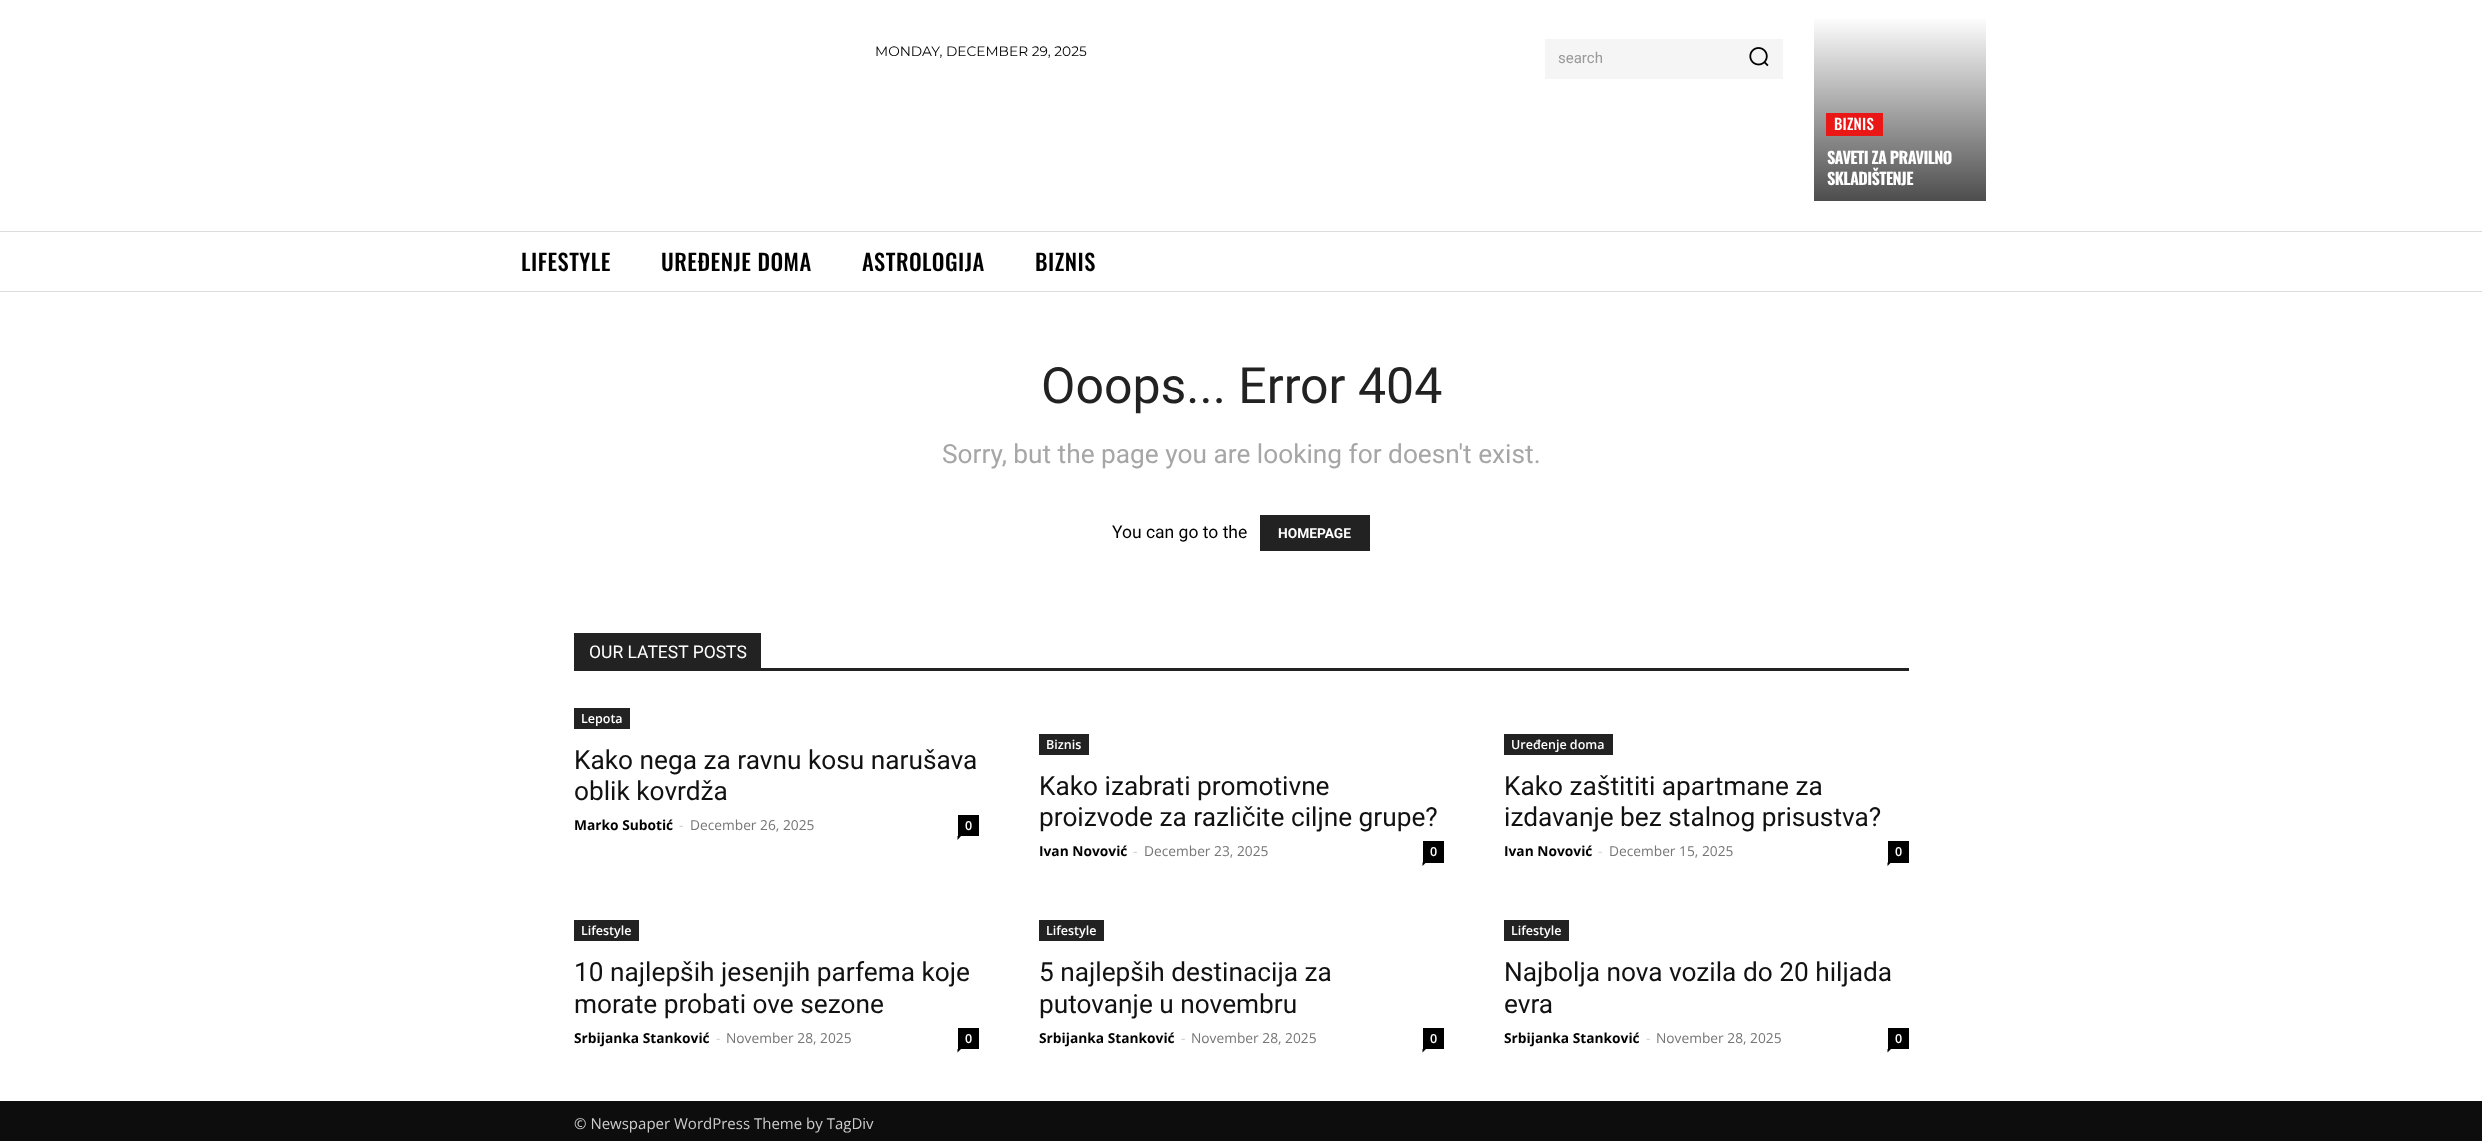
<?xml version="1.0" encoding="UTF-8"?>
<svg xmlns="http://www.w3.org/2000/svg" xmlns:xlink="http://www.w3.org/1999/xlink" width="2482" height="1141">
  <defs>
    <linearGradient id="g1" gradientUnits="userSpaceOnUse" x1="1900" y1="201" x2="1900" y2="16"><stop offset="0" stop-color="#4d4d4d" /><stop offset="1" stop-color="#ffffff" /></linearGradient>
  </defs>
  <rect width="100%" height="100%" fill="#ffffff" />
  <rect x="1545" y="39" width="238" height="40" fill="#f5f5f5" />
  <image x="1749" y="47" width="20" height="20" xlink:href="image1.png" />
  <rect x="1814" y="19" width="172" height="182" fill="url(#g1)" />
  <rect x="1826" y="113" width="57" height="23" fill="#ea1717" />
  <rect y="231" width="2482" height="1" fill="#dddddd" />
  <rect y="291" width="2482" height="1" fill="#dddddd" />
  <rect x="1260" y="515" width="110" height="36" fill="#222222" />
  <rect x="574" y="668" width="1335" height="3" fill="#222222" />
  <rect x="574" y="633" width="187" height="35" fill="#222222" />
  <rect x="574" y="708" width="56" height="21" fill="#222222" />
  <rect x="958" y="815" width="21" height="21" fill="#000000" />
  <path d="M 957.5 836 h 3.5 l -3.5 4 z" fill="#000000" />
  <rect x="1039" y="734" width="50" height="21" fill="#222222" />
  <rect x="1423" y="841" width="21" height="22" fill="#000000" />
  <path d="M 1422.5 862.5 h 3.5 l -3.5 3.5 z" fill="#000000" />
  <rect x="1504" y="734" width="109" height="21" fill="#222222" />
  <rect x="1888" y="841" width="21" height="22" fill="#000000" />
  <path d="M 1887.5 862.5 h 3.5 l -3.5 3.5 z" fill="#000000" />
  <rect x="574" y="920" width="65" height="21" fill="#222222" />
  <rect x="958" y="1028" width="21" height="21" fill="#000000" />
  <path d="M 957.5 1049 h 3.5 l -3.5 3.5 z" fill="#000000" />
  <rect x="1039" y="920" width="65" height="21" fill="#222222" />
  <rect x="1423" y="1028" width="21" height="21" fill="#000000" />
  <path d="M 1422.5 1049 h 3.5 l -3.5 3.5 z" fill="#000000" />
  <rect x="1504" y="920" width="65" height="21" fill="#222222" />
  <rect x="1888" y="1028" width="21" height="21" fill="#000000" />
  <path d="M 1887.5 1049 h 3.5 l -3.5 3.5 z" fill="#000000" />
  <rect y="1101" width="2482" height="40" fill="#0d0d0d" />
  <text x="875" y="56" style="font-family: Montserrat; font-size: 13.75px; font-weight: 100; fill: #000000">MONDAY, DECEMBER 29, 2025</text>
  <text x="1558" y="63" style="font-family: Roboto; font-size: 15px; fill: #999999">search</text>
  <text x="1834" y="130" style="font-family: Oswald; font-size: 15px; font-weight: 500; letter-spacing: 0.25px; fill: #ffffff">BIZNIS</text>
  <text x="1827" y="164" style="font-family: Oswald; font-size: 16.25px; font-weight: bold; letter-spacing: -0.6px; fill: #ffffff">SAVETI ZA PRAVILNO</text>
  <text x="1827" y="185" style="font-family: Oswald; font-size: 16.25px; font-weight: bold; letter-spacing: -0.6px; fill: #ffffff">SKLADIŠTENJE</text>
  <text x="521" y="271" style="font-family: Oswald; font-size: 22.5px; font-weight: 500; letter-spacing: 0.5px; fill: #000000">LIFESTYLE</text>
  <text x="661" y="271" style="font-family: Oswald; font-size: 22.5px; font-weight: 500; letter-spacing: 0.5px; fill: #000000">UREĐENJE DOMA</text>
  <text x="862" y="271" style="font-family: Oswald; font-size: 22.5px; font-weight: 500; letter-spacing: 0.5px; fill: #000000">ASTROLOGIJA</text>
  <text x="1035" y="271" style="font-family: Oswald; font-size: 22.5px; font-weight: 500; letter-spacing: 0.5px; fill: #000000">BIZNIS</text>
  <text x="1041" y="403" style="font-family: Roboto; font-size: 50px; fill: #222222">Ooops... Error 404</text>
  <text x="942" y="463" style="font-family: Roboto; font-size: 26.25px; fill: #a6a6a6">Sorry, but the page you are looking for doesn't exist.</text>
  <text x="1112" y="538" style="font-family: Roboto; font-size: 17.5px; fill: #000000">You can go to the</text>
  <text x="1278" y="538" style="font-family: Roboto; font-size: 13.75px; font-weight: bold; fill: #ffffff">HOMEPAGE</text>
  <text x="589" y="658" style="font-family: Roboto; font-size: 17.5px; fill: #ffffff">OUR LATEST POSTS</text>
  <text x="581" y="723" style="font-family: Open Sans; font-size: 12.5px; font-weight: 600; fill: #ffffff">Lepota</text>
  <text x="574" y="769" style="font-family: Roboto; font-size: 26.25px; fill: #111111">Kako nega za ravnu kosu narušava</text>
  <text x="574" y="800" style="font-family: Roboto; font-size: 26.25px; fill: #111111">oblik kovrdža</text>
  <text x="574" y="830" style="font-family: Open Sans; font-size: 13.75px; font-weight: bold; fill: #000000">Marko Subotić</text>
  <text x="679" y="830" style="font-family: Open Sans; font-size: 13.75px; fill: #cccccc">-</text>
  <text x="690" y="830" style="font-family: Open Sans; font-size: 13.75px; fill: #767676">December 26, 2025</text>
  <text x="965" y="830" style="font-family: Open Sans; font-size: 12.5px; font-weight: 600; fill: #ffffff">0</text>
  <text x="1046" y="749" style="font-family: Open Sans; font-size: 12.5px; font-weight: 600; fill: #ffffff">Biznis</text>
  <text x="1039" y="795" style="font-family: Roboto; font-size: 26.25px; fill: #111111">Kako izabrati promotivne</text>
  <text x="1039" y="826" style="font-family: Roboto; font-size: 26.25px; fill: #111111">proizvode za različite ciljne grupe?</text>
  <text x="1039" y="856" style="font-family: Open Sans; font-size: 13.75px; font-weight: bold; fill: #000000">Ivan Novović</text>
  <text x="1133" y="856" style="font-family: Open Sans; font-size: 13.75px; fill: #cccccc">-</text>
  <text x="1144" y="856" style="font-family: Open Sans; font-size: 13.75px; fill: #767676">December 23, 2025</text>
  <text x="1430" y="856" style="font-family: Open Sans; font-size: 12.5px; font-weight: 600; fill: #ffffff">0</text>
  <text x="1511" y="749" style="font-family: Open Sans; font-size: 12.5px; font-weight: 600; fill: #ffffff">Uređenje doma</text>
  <text x="1504" y="795" style="font-family: Roboto; font-size: 26.25px; fill: #111111">Kako zaštititi apartmane za</text>
  <text x="1504" y="826" style="font-family: Roboto; font-size: 26.25px; fill: #111111">izdavanje bez stalnog prisustva?</text>
  <text x="1504" y="856" style="font-family: Open Sans; font-size: 13.75px; font-weight: bold; fill: #000000">Ivan Novović</text>
  <text x="1598" y="856" style="font-family: Open Sans; font-size: 13.75px; fill: #cccccc">-</text>
  <text x="1609" y="856" style="font-family: Open Sans; font-size: 13.75px; fill: #767676">December 15, 2025</text>
  <text x="1895" y="856" style="font-family: Open Sans; font-size: 12.5px; font-weight: 600; fill: #ffffff">0</text>
  <text x="581" y="935" style="font-family: Open Sans; font-size: 12.5px; font-weight: 600; fill: #ffffff">Lifestyle</text>
  <text x="574" y="981" style="font-family: Roboto; font-size: 26.25px; fill: #111111">10 najlepših jesenjih parfema koje</text>
  <text x="574" y="1013" style="font-family: Roboto; font-size: 26.25px; fill: #111111">morate probati ove sezone</text>
  <text x="574" y="1043" style="font-family: Open Sans; font-size: 13.75px; font-weight: bold; fill: #000000">Srbijanka Stanković</text>
  <text x="716" y="1043" style="font-family: Open Sans; font-size: 13.75px; fill: #cccccc">-</text>
  <text x="726" y="1043" style="font-family: Open Sans; font-size: 13.75px; fill: #767676">November 28, 2025</text>
  <text x="965" y="1043" style="font-family: Open Sans; font-size: 12.5px; font-weight: 600; fill: #ffffff">0</text>
  <text x="1046" y="935" style="font-family: Open Sans; font-size: 12.5px; font-weight: 600; fill: #ffffff">Lifestyle</text>
  <text x="1039" y="981" style="font-family: Roboto; font-size: 26.25px; fill: #111111">5 najlepših destinacija za</text>
  <text x="1039" y="1013" style="font-family: Roboto; font-size: 26.25px; fill: #111111">putovanje u novembru</text>
  <text x="1039" y="1043" style="font-family: Open Sans; font-size: 13.75px; font-weight: bold; fill: #000000">Srbijanka Stanković</text>
  <text x="1181" y="1043" style="font-family: Open Sans; font-size: 13.75px; fill: #cccccc">-</text>
  <text x="1191" y="1043" style="font-family: Open Sans; font-size: 13.75px; fill: #767676">November 28, 2025</text>
  <text x="1430" y="1043" style="font-family: Open Sans; font-size: 12.5px; font-weight: 600; fill: #ffffff">0</text>
  <text x="1511" y="935" style="font-family: Open Sans; font-size: 12.5px; font-weight: 600; fill: #ffffff">Lifestyle</text>
  <text x="1504" y="981" style="font-family: Roboto; font-size: 26.25px; fill: #111111">Najbolja nova vozila do 20 hiljada</text>
  <text x="1504" y="1013" style="font-family: Roboto; font-size: 26.25px; fill: #111111">evra</text>
  <text x="1504" y="1043" style="font-family: Open Sans; font-size: 13.75px; font-weight: bold; fill: #000000">Srbijanka Stanković</text>
  <text x="1646" y="1043" style="font-family: Open Sans; font-size: 13.75px; fill: #cccccc">-</text>
  <text x="1656" y="1043" style="font-family: Open Sans; font-size: 13.75px; fill: #767676">November 28, 2025</text>
  <text x="1895" y="1043" style="font-family: Open Sans; font-size: 12.5px; font-weight: 600; fill: #ffffff">0</text>
  <text x="574" y="1129" style="font-family: Open Sans; font-size: 15px; fill: #cccccc">© Newspaper WordPress Theme by TagDiv</text>
</svg>
